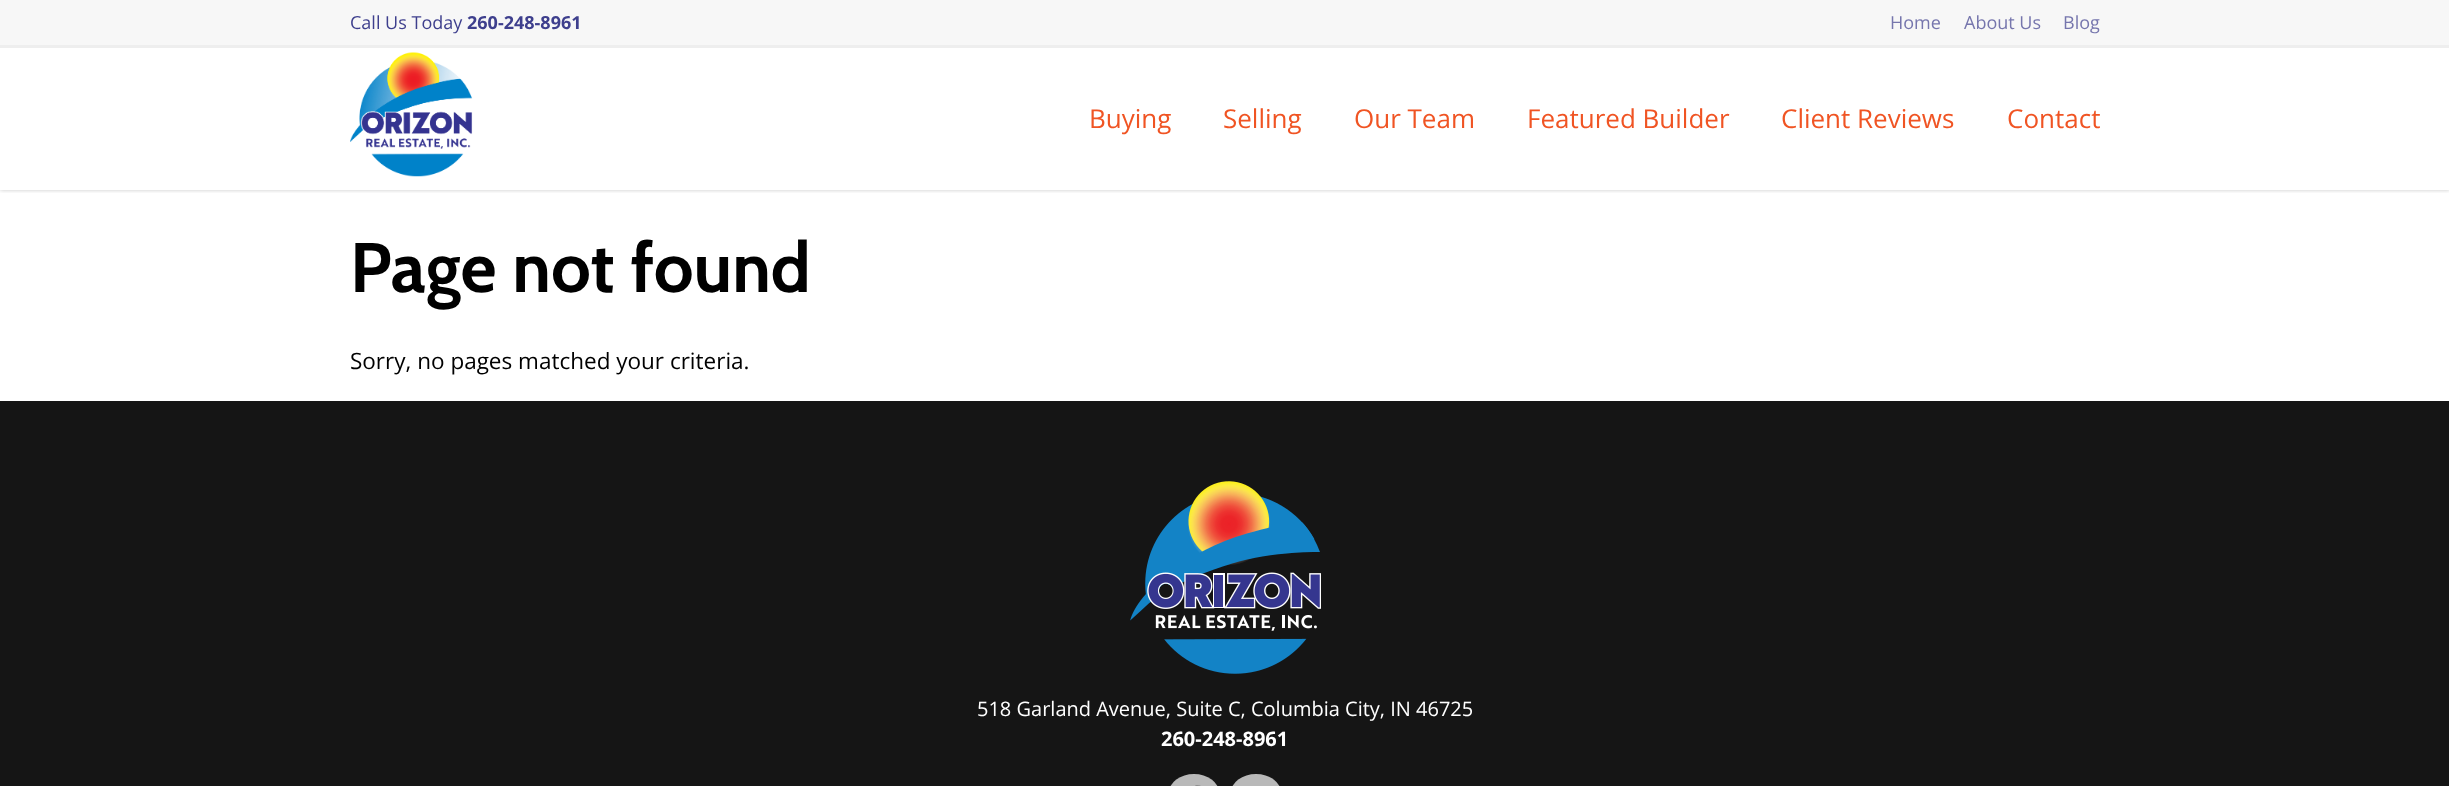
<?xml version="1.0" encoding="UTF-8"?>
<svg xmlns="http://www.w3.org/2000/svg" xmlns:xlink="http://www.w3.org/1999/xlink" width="2449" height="786">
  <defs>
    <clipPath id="clip1"><rect x="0" y="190" width="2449" height="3" /></clipPath>
  </defs>
  <rect width="100%" height="100%" fill="#ffffff" />
  <g clip-path="url(#clip1)">
    <rect y="48" width="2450" height="142" fill="#000000" fill-opacity="0.22" filter="blur(2px)" />
  </g>
  <rect width="2449" height="45" fill="#f7f7f7" />
  <rect y="45" width="2449" height="3" fill="#eeeeee" />
  <image x="350" y="52" width="123" height="125" xlink:href="image1.png" />
  <rect y="401" width="2449" height="385" fill="#151515" />
  <image x="1130" y="481" width="191" height="193" xlink:href="image2.png" />
  <rect x="1169" y="774" width="50" height="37" rx="25" fill="#b9b9b9" />
  <image x="1195" y="785" width="6" height="1" xlink:href="image3.png" />
  <rect x="1231" y="774" width="50" height="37" rx="25" fill="#b9b9b9" />
  <text x="350" y="29" style="font-family: Open Sans; font-size: 18px; fill: #3e3f8d">Call Us Today</text>
  <text x="467" y="29" style="font-family: Open Sans; font-size: 18px; font-weight: bold; fill: #3e3f8d">260-248-8961</text>
  <text x="1890" y="29" style="font-family: Open Sans; font-size: 18px; fill: #7676ad">Home</text>
  <text x="1964" y="29" style="font-family: Open Sans; font-size: 18px; fill: #7676ad">About Us</text>
  <text x="2063" y="29" style="font-family: Open Sans; font-size: 18px; fill: #7676ad">Blog</text>
  <text x="1089" y="128" style="font-family: Open Sans; font-size: 26px; fill: #f05423">Buying</text>
  <text x="1223" y="128" style="font-family: Open Sans; font-size: 26px; fill: #f05423">Selling</text>
  <text x="1354" y="128" style="font-family: Open Sans; font-size: 26px; fill: #f05423">Our Team</text>
  <text x="1527" y="128" style="font-family: Open Sans; font-size: 26px; fill: #f05423">Featured Builder</text>
  <text x="1781" y="128" style="font-family: Open Sans; font-size: 26px; fill: #f05423">Client Reviews</text>
  <text x="2007" y="128" style="font-family: Open Sans; font-size: 26px; fill: #f05423">Contact</text>
  <text x="350" y="292" style="font-family: Cabin; font-size: 70px; font-weight: bold; fill: #000000">Page not found</text>
  <text x="350" y="369" style="font-family: Open Sans; font-size: 22.5px; fill: #000000">Sorry, no pages matched your criteria.</text>
  <text x="977" y="716" style="font-family: Open Sans; font-size: 20px; fill: #ffffff">518 Garland Avenue, Suite C, Columbia City, IN 46725</text>
  <text x="1161" y="746" style="font-family: Open Sans; font-size: 20px; font-weight: bold; fill: #ffffff">260-248-8961</text>
</svg>
